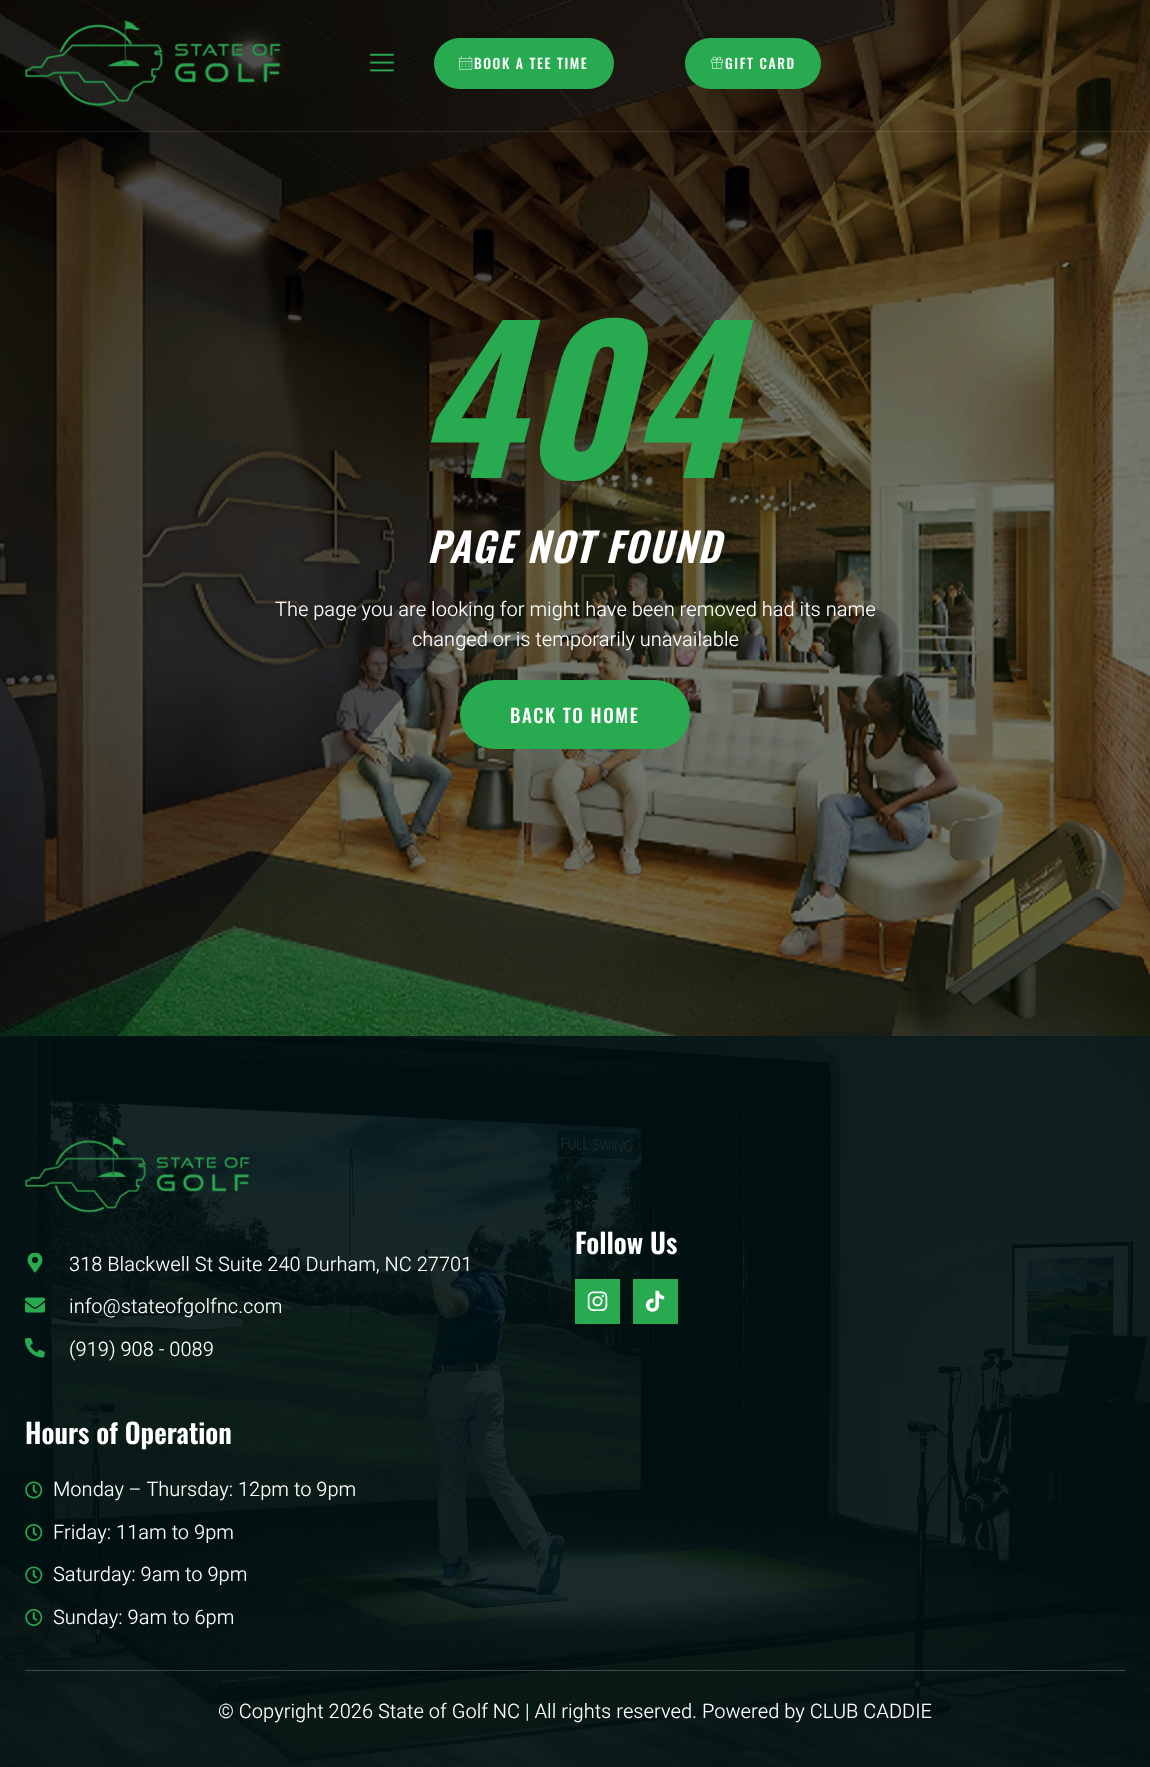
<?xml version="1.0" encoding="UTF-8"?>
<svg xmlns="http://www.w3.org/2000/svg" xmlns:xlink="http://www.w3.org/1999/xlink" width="1150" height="1767">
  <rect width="100%" height="100%" fill="#ffffff" />
  <image x="0" y="0" width="1150" height="1036" xlink:href="image5.png" />
  <rect y="131" width="1150" height="1" fill="#ffffff" fill-opacity="0.11" />
  <image x="25" y="20" width="257" height="87" xlink:href="image1.png" />
  <image x="370" y="53" width="24" height="19" xlink:href="image2.png" />
  <rect x="434" y="38" width="180" height="51" rx="25.5" fill="#28ab50" />
  <image x="459" y="56" width="14" height="14" xlink:href="image3.png" />
  <rect x="685" y="38" width="136" height="51" rx="25.5" fill="#28ab50" />
  <image x="710" y="56" width="13" height="13" xlink:href="image4.png" />
  <rect x="460" y="680" width="230" height="69" rx="34.5" fill="#28ab50" />
  <rect y="1036" width="1150" height="731" fill="#001213" />
  <image x="0" y="1036" width="1150" height="731" xlink:href="image6.png" />
  <rect x="575" y="1279" width="45" height="45" fill="#28ab50" />
  <image x="587" y="1291" width="21" height="20" xlink:href="image7.png" />
  <rect x="633" y="1279" width="45" height="45" fill="#28ab50" />
  <image x="645" y="1290" width="20" height="22" xlink:href="image8.png" />
  <image x="25" y="1136" width="225" height="77" xlink:href="image9.png" />
  <image x="27" y="1253" width="16" height="20" xlink:href="image10.png" />
  <image x="25" y="1297" width="20" height="16" xlink:href="image11.png" />
  <image x="25" y="1338" width="20" height="20" xlink:href="image12.png" />
  <image x="25" y="1481" width="18" height="18" xlink:href="image13.png" />
  <image x="25" y="1524" width="18" height="17" xlink:href="image14.png" />
  <image x="25" y="1566" width="18" height="18" xlink:href="image15.png" />
  <image x="25" y="1609" width="18" height="17" xlink:href="image16.png" />
  <rect x="25" y="1670" width="1100" height="1" fill="#ffffff" fill-opacity="0.22" />
  <text x="474" y="69" style="font-family: Oswald; font-size: 13.75px; font-weight: 500; letter-spacing: 1.6px; fill: #ffffff">BOOK A TEE TIME</text>
  <text x="725" y="69" style="font-family: Oswald; font-size: 13.75px; font-weight: 500; letter-spacing: 1.6px; fill: #ffffff">GIFT CARD</text>
  <text x="417" y="478" style="font-family: Oswald; font-size: 195px; font-weight: bold; font-style: italic; letter-spacing: 1.6px; fill: #28ab50">404</text>
  <text x="427" y="563" style="font-family: Oswald; font-size: 40px; font-weight: 600; font-style: italic; letter-spacing: 1.6px; fill: #ffffff">PAGE NOT FOUND</text>
  <text x="275" y="616" style="font-family: Heebo; font-size: 20px; font-weight: 300; fill: #ffffff">The page you are looking for might have been removed had its name</text>
  <text x="412" y="646" style="font-family: Heebo; font-size: 20px; font-weight: 300; fill: #ffffff">changed or is temporarily unavailable</text>
  <text x="510" y="723" style="font-family: Oswald; font-size: 18.75px; font-weight: 500; letter-spacing: 1.6px; fill: #ffffff">BACK TO HOME</text>
  <text x="575" y="1254" style="font-family: Oswald; font-size: 27.5px; font-weight: 600; fill: #ffffff">Follow Us</text>
  <text x="69" y="1271" style="font-family: Heebo; font-size: 20px; font-weight: 300; fill: #ffffff">318 Blackwell St Suite 240 Durham, NC 27701</text>
  <text x="69" y="1313" style="font-family: Heebo; font-size: 20px; font-weight: 300; fill: #ffffff">info@stateofgolfnc.com</text>
  <text x="69" y="1356" style="font-family: Heebo; font-size: 20px; font-weight: 300; fill: #ffffff">(919) 908 - 0089</text>
  <text x="25" y="1444" style="font-family: Oswald; font-size: 27.5px; font-weight: 600; fill: #ffffff">Hours of Operation</text>
  <text x="53" y="1496" style="font-family: Heebo; font-size: 20px; font-weight: 300; fill: #ffffff">Monday – Thursday: 12pm to 9pm</text>
  <text x="53" y="1539" style="font-family: Heebo; font-size: 20px; font-weight: 300; fill: #ffffff">Friday: 11am to 9pm</text>
  <text x="53" y="1581" style="font-family: Heebo; font-size: 20px; font-weight: 300; fill: #ffffff">Saturday: 9am to 9pm</text>
  <text x="53" y="1624" style="font-family: Heebo; font-size: 20px; font-weight: 300; fill: #ffffff">Sunday: 9am to 6pm</text>
  <text x="218" y="1718" style="font-family: Heebo; font-size: 20px; font-weight: 300; fill: #ffffff">© Copyright 2026 State of Golf NC | All rights reserved. Powered by CLUB CADDIE</text>
</svg>
